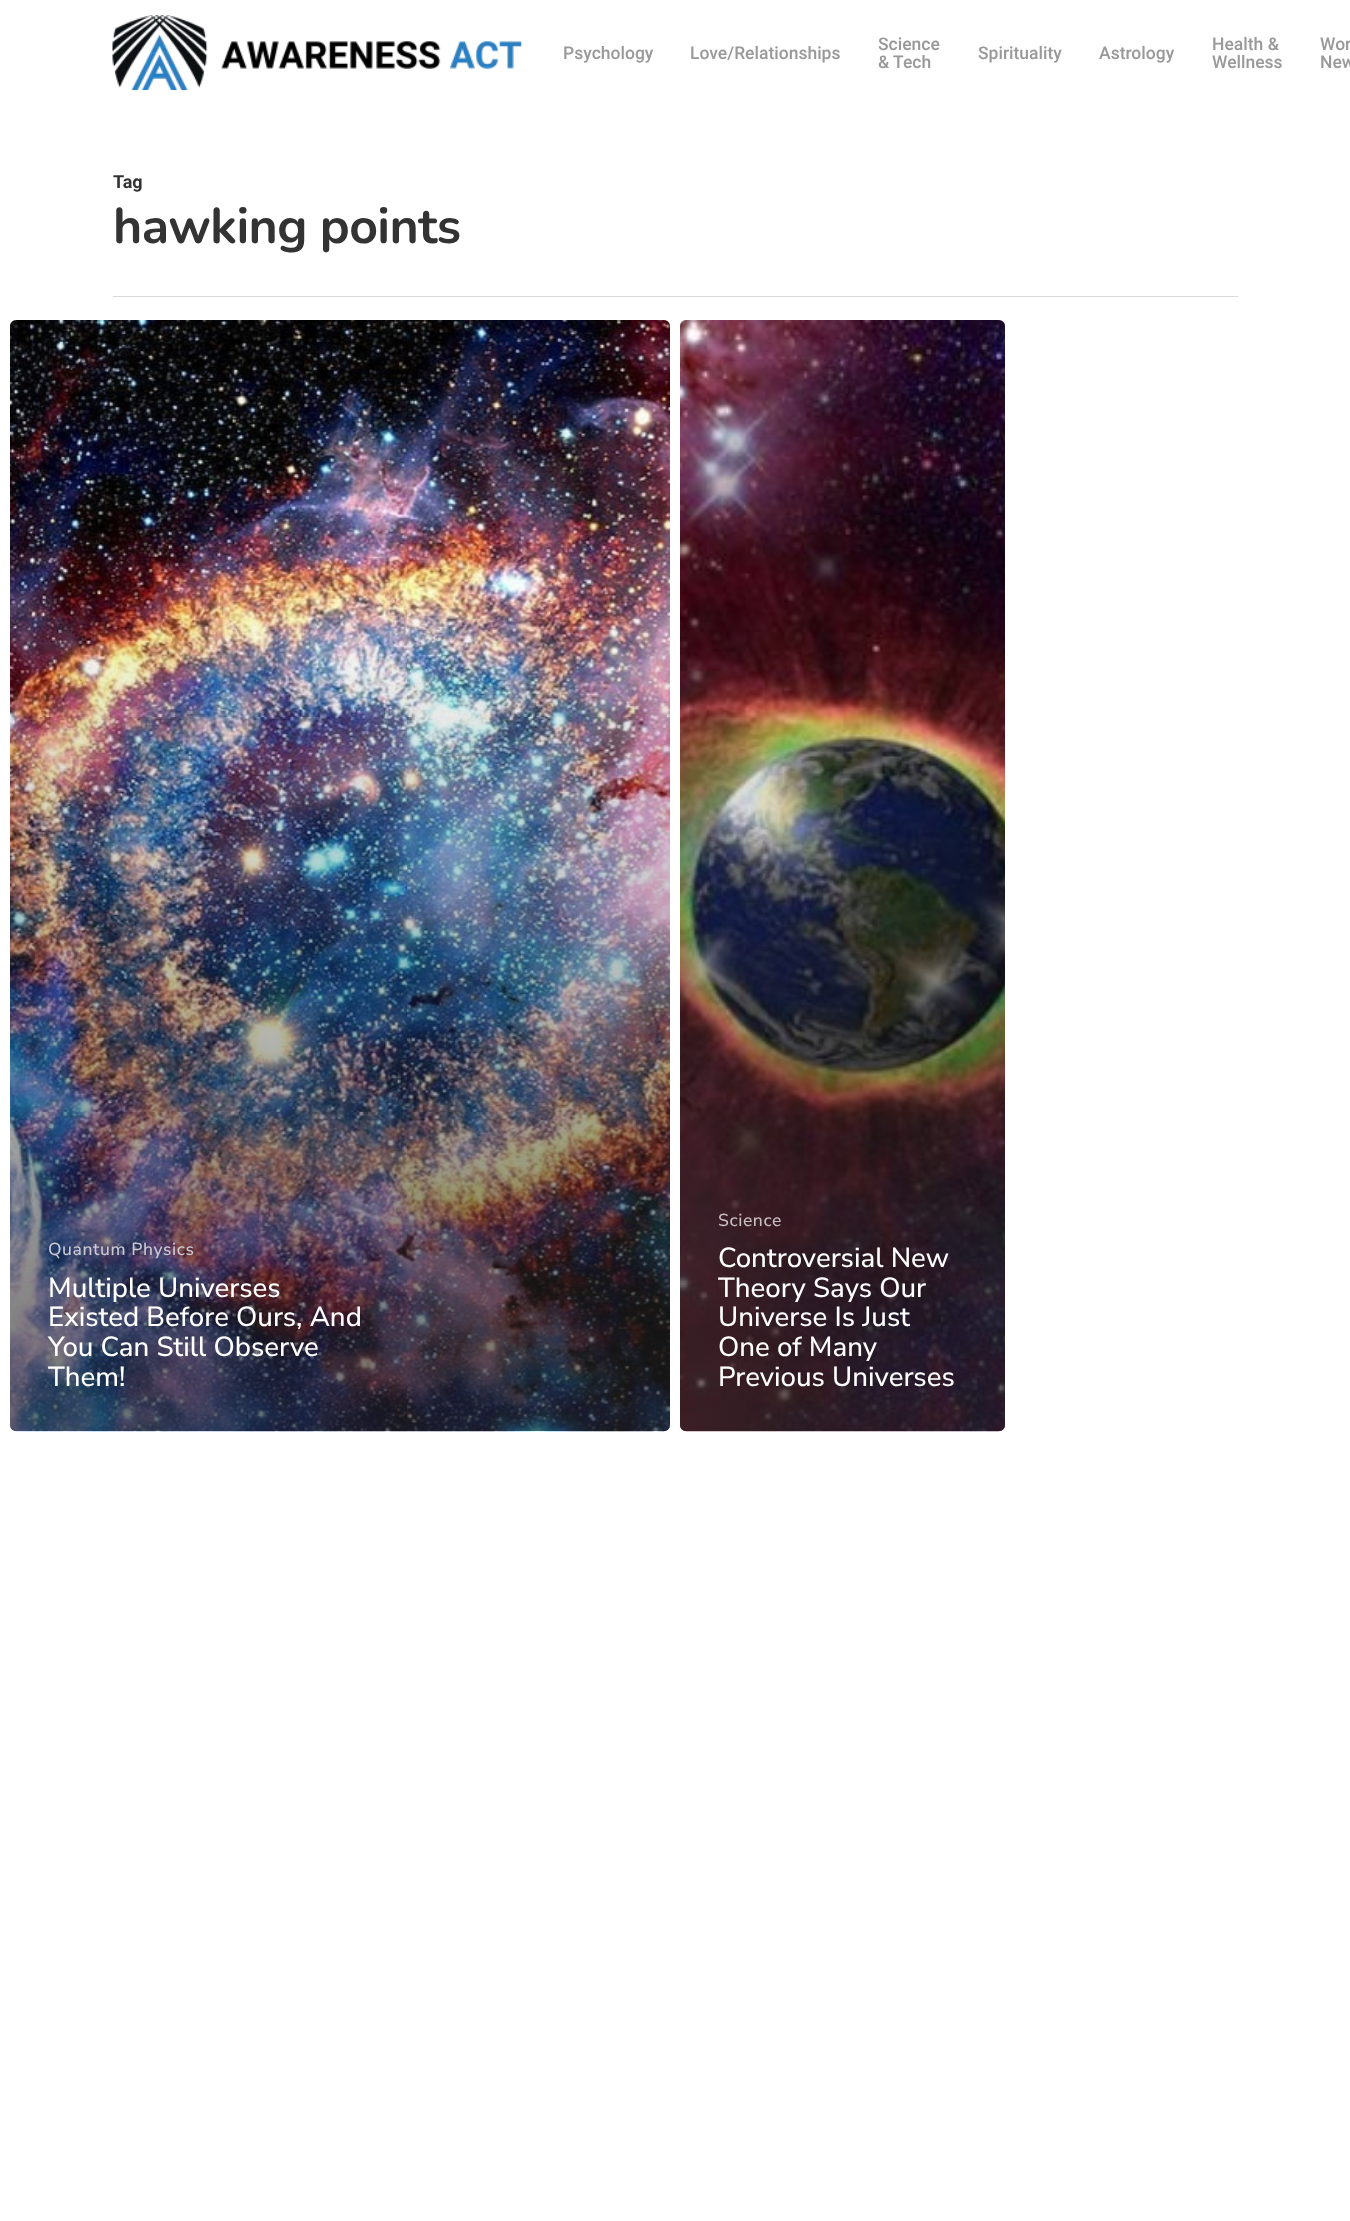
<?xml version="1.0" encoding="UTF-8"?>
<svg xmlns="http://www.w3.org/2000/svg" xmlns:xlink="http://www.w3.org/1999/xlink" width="1350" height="2221">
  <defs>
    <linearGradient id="g1" gradientUnits="userSpaceOnUse" x1="342" y1="599" x2="342" y2="1436"><stop offset="0" stop-color="#232323" stop-opacity="0" /><stop offset="1" stop-color="#232323" stop-opacity="0.65" /></linearGradient>
    <linearGradient id="g2" gradientUnits="userSpaceOnUse" x1="843" y1="599" x2="843" y2="1436"><stop offset="0" stop-color="#232323" stop-opacity="0" /><stop offset="1" stop-color="#232323" stop-opacity="0.65" /></linearGradient>
  </defs>
  <rect width="100%" height="100%" fill="#ffffff" />
  <image x="112" y="15" width="410" height="75" xlink:href="image1.png" />
  <rect x="113" y="296" width="1125" height="1" fill="#d9d9d9" />
  <rect x="10" y="320" width="660" height="1111" rx="6" fill="#b3b3b3" />
  <image x="10" y="320" width="660" height="1112" xlink:href="image2.png" />
  <path d="M 10 599 h 660 v 826 c 0 3.5 -2.5 6 -6 6 h -648 c -3.5 0 -6 -2.5 -6 -6 z" fill="url(#g1)" />
  <rect x="680" y="320" width="325" height="1111" rx="6" fill="#b3b3b3" />
  <image x="680" y="320" width="325" height="1112" xlink:href="image3.png" />
  <path d="M 680 599 h 325 v 826 c 0 3.5 -2.5 6 -6 6 h -313 c -3.5 0 -6 -2.5 -6 -6 z" fill="url(#g2)" />
  <text x="563" y="59" style="font-family: Roboto; font-size: 17.5px; font-weight: 500; fill: #999999">Psychology</text>
  <text x="690" y="59" style="font-family: Roboto; font-size: 17.5px; font-weight: 500; fill: #999999">Love/Relationships</text>
  <text x="878" y="50" style="font-family: Roboto; font-size: 17.5px; font-weight: 500; fill: #999999">Science</text>
  <text x="878" y="68" style="font-family: Roboto; font-size: 17.5px; font-weight: 500; fill: #999999">&amp; Tech</text>
  <text x="978" y="59" style="font-family: Roboto; font-size: 17.5px; font-weight: 500; fill: #999999">Spirituality</text>
  <text x="1099" y="59" style="font-family: Roboto; font-size: 17.5px; font-weight: 500; fill: #999999">Astrology</text>
  <text x="1212" y="50" style="font-family: Roboto; font-size: 17.5px; font-weight: 500; fill: #999999">Health &amp;</text>
  <text x="1212" y="68" style="font-family: Roboto; font-size: 17.5px; font-weight: 500; fill: #999999">Wellness</text>
  <text x="1320" y="50" style="font-family: Roboto; font-size: 17.5px; font-weight: 500; fill: #999999">Wor</text>
  <text x="1320" y="68" style="font-family: Roboto; font-size: 17.5px; font-weight: 500; fill: #999999">New</text>
  <text x="113" y="188" style="font-family: Roboto; font-size: 18px; font-weight: bold; fill: #333333">Tag</text>
  <text x="113" y="243" style="font-family: Nunito; font-size: 50px; font-weight: bold; letter-spacing: -0.6px; fill: #333333">hawking points</text>
  <text x="48" y="1255" style="font-family: Nunito Sans; font-size: 17.5px; font-weight: 500; letter-spacing: 0.6px; fill: #cbcad3">Quantum Physics</text>
  <text x="48" y="1297" style="font-family: Nunito Sans; font-size: 27.6px; font-weight: 500; fill: #ffffff">Multiple Universes</text>
  <text x="48" y="1326" style="font-family: Nunito Sans; font-size: 27.6px; font-weight: 500; fill: #ffffff">Existed Before Ours, And</text>
  <text x="48" y="1356" style="font-family: Nunito Sans; font-size: 27.6px; font-weight: 500; fill: #ffffff">You Can Still Observe</text>
  <text x="48" y="1386" style="font-family: Nunito Sans; font-size: 27.6px; font-weight: 500; fill: #ffffff">Them!</text>
  <text x="718" y="1226" style="font-family: Nunito Sans; font-size: 17.5px; font-weight: 500; letter-spacing: 0.6px; fill: #c8bfc2">Science</text>
  <text x="718" y="1267" style="font-family: Nunito Sans; font-size: 27.6px; font-weight: 500; fill: #ffffff">Controversial New</text>
  <text x="718" y="1297" style="font-family: Nunito Sans; font-size: 27.6px; font-weight: 500; fill: #ffffff">Theory Says Our</text>
  <text x="718" y="1326" style="font-family: Nunito Sans; font-size: 27.6px; font-weight: 500; fill: #ffffff">Universe Is Just</text>
  <text x="718" y="1356" style="font-family: Nunito Sans; font-size: 27.6px; font-weight: 500; fill: #ffffff">One of Many</text>
  <text x="718" y="1386" style="font-family: Nunito Sans; font-size: 27.6px; font-weight: 500; fill: #ffffff">Previous Universes</text>
</svg>
